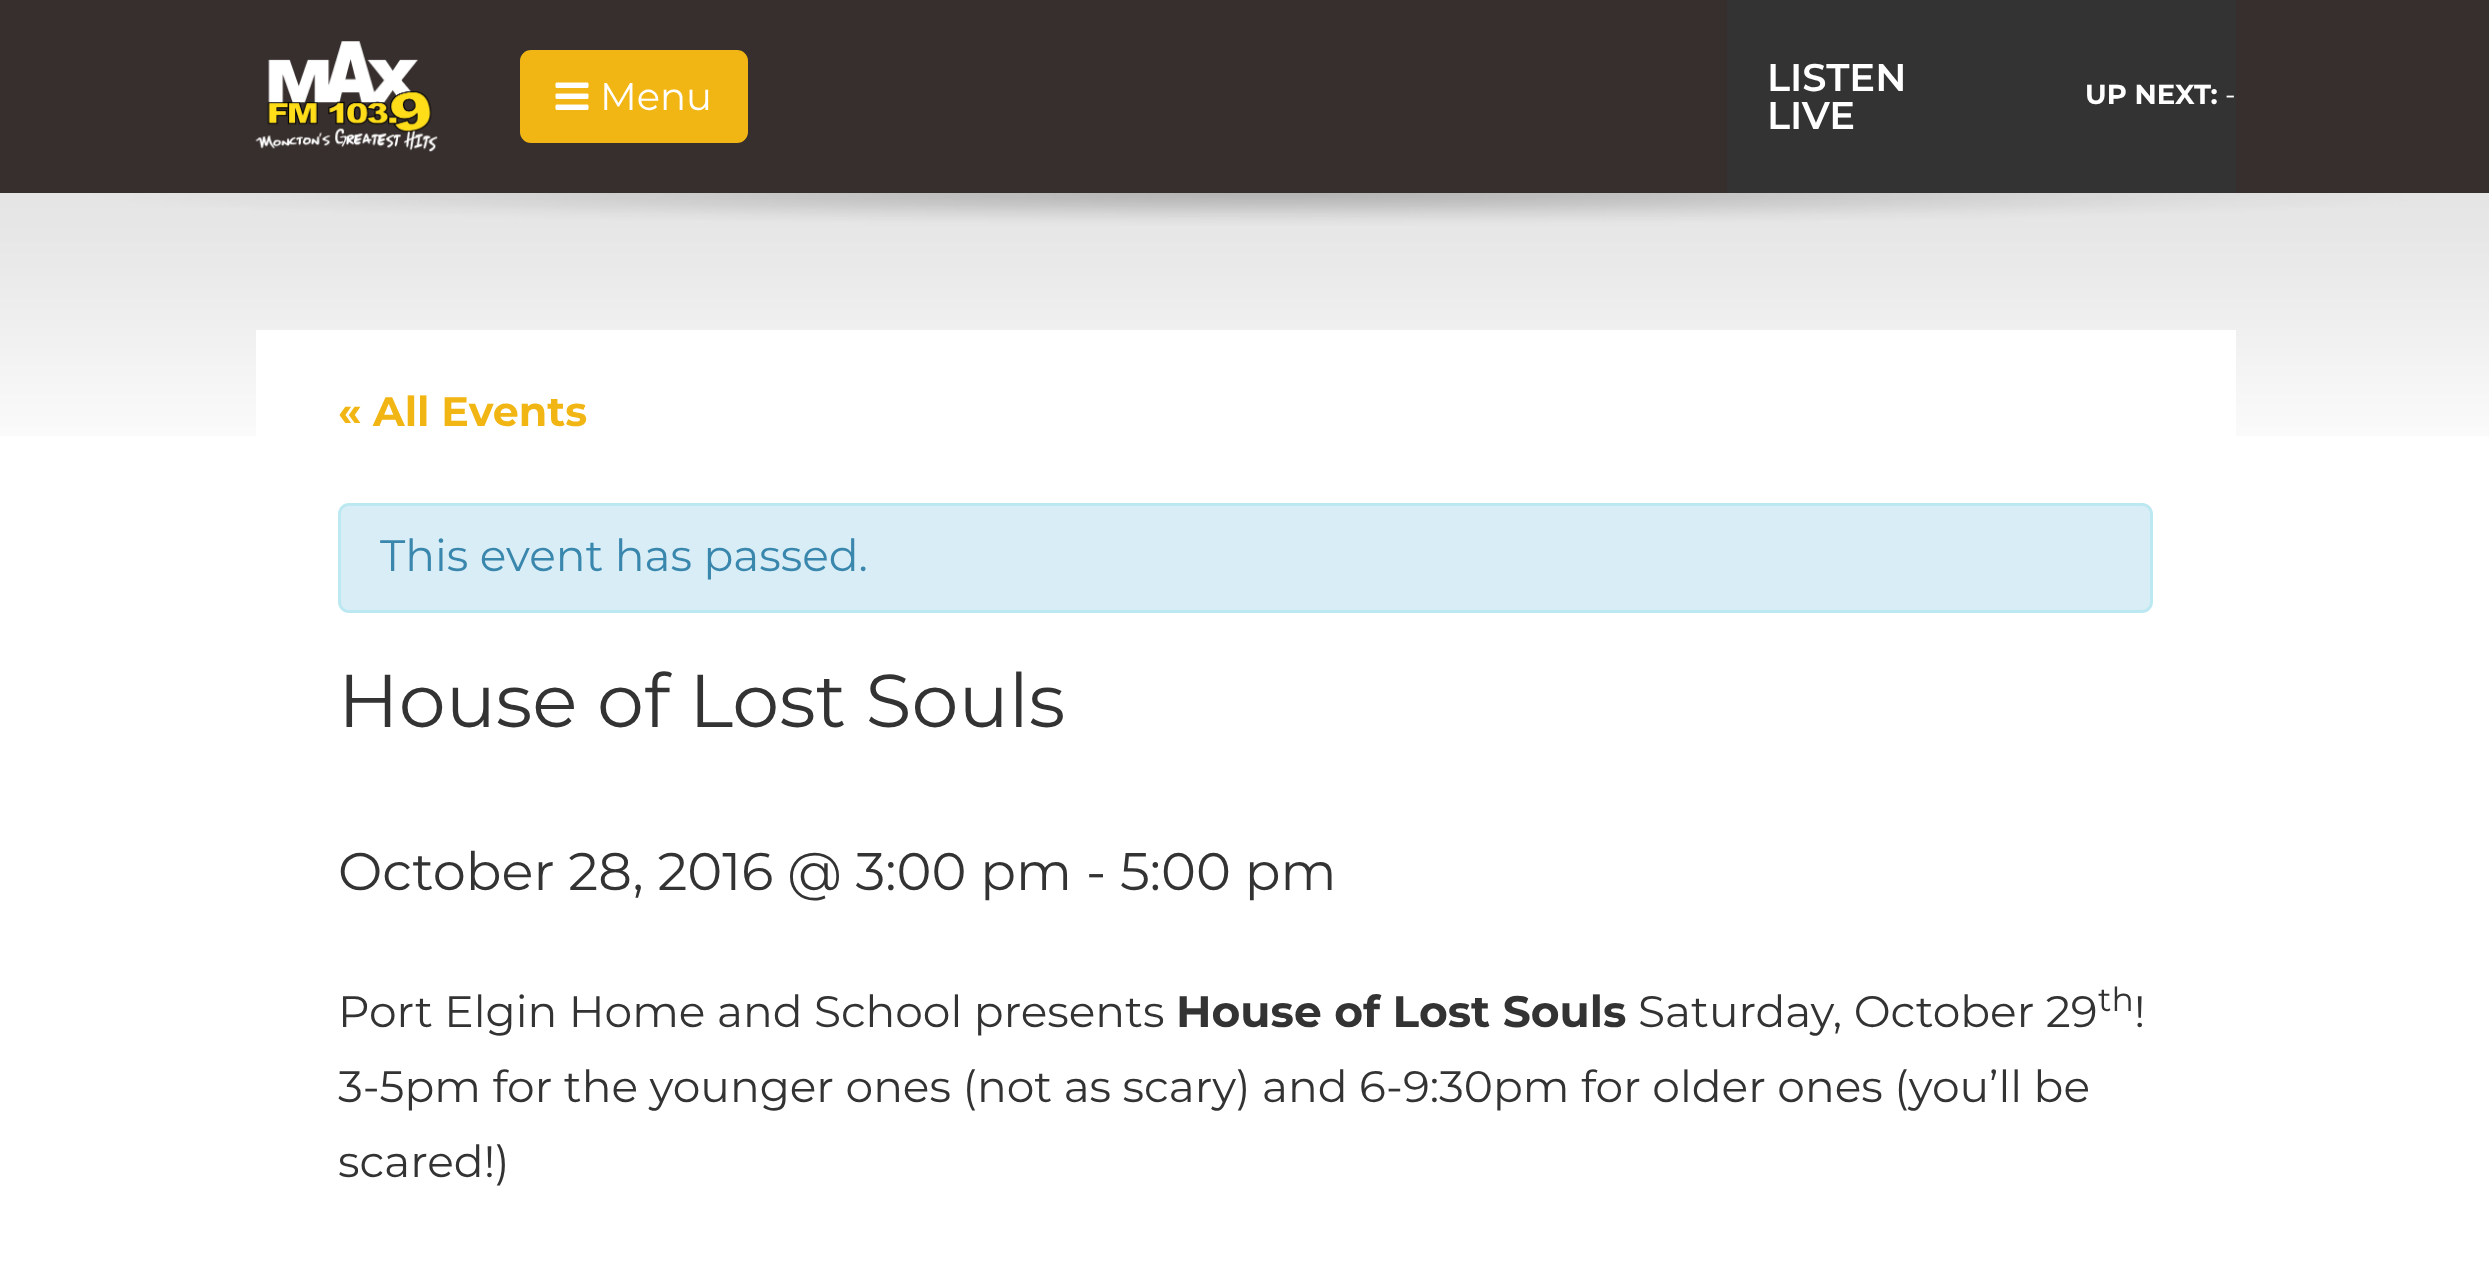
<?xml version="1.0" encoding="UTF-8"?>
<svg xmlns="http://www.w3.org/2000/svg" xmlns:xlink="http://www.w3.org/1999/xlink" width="2489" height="1264">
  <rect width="100%" height="100%" fill="#ffffff" />
  <rect width="2489" height="193" fill="#372f2d" />
  <image x="255" y="41" width="183" height="111" xlink:href="image1.png" />
  <rect x="521.5" y="51.5" width="225" height="90" rx="9.5" fill="#f2b614" stroke="#f2b614" stroke-width="3" />
  <image x="555" y="82" width="34" height="28" xlink:href="image2.png" />
  <rect x="1727" width="509" height="193" fill="#333333" />
  <image x="0" y="193" width="2489" height="243" xlink:href="image3.png" />
  <rect x="256" y="330" width="1980" height="106" fill="#ffffff" />
  <rect x="339.5" y="504.5" width="1812" height="107" rx="9.5" fill="#d9edf7" stroke="#bce8f1" stroke-width="3" />
  <text x="600" y="110" style="font-family: Montserrat; font-size: 38.5px; fill: #ffffff">Menu</text>
  <text x="1767" y="91" style="font-family: Montserrat; font-size: 38.5px; font-weight: 600; fill: #ffffff">LISTEN</text>
  <text x="1767" y="129" style="font-family: Montserrat; font-size: 38.5px; font-weight: 600; fill: #ffffff">LIVE</text>
  <text x="2085" y="104" style="font-family: Montserrat; font-size: 27.5px; font-weight: bold; fill: #ffffff">UP NEXT:</text>
  <text x="2225" y="104" style="font-family: Montserrat; font-size: 27.5px; fill: #ffffff">-</text>
  <text x="338" y="426" style="font-family: Montserrat; font-size: 41.25px; font-weight: bold; fill: #f2b614">« All Events</text>
  <text x="380" y="571" style="font-family: Montserrat; font-size: 44px; fill: #3a87ad">This event has passed.</text>
  <text x="338" y="727" style="font-family: Montserrat; font-size: 74.75px; fill: #333333">House of Lost Souls</text>
  <text x="338" y="890" style="font-family: Montserrat; font-size: 52.75px; fill: #333333">October 28, 2016 @ 3:00 pm</text>
  <text x="1086" y="890" style="font-family: Montserrat; font-size: 52.75px; fill: #333333">- 5:00 pm</text>
  <text x="338" y="1027" style="font-family: Montserrat; font-size: 44px; fill: #333333">Port Elgin Home and School presents</text>
  <text x="1176" y="1027" style="font-family: Montserrat; font-size: 44px; font-weight: bold; fill: #333333">House of Lost Souls</text>
  <text x="1638" y="1027" style="font-family: Montserrat; font-size: 44px; fill: #333333">Saturday, October 29</text>
  <text x="2098" y="1011" style="font-family: Montserrat; font-size: 33px; fill: #333333">th</text>
  <text x="2134" y="1027" style="font-family: Montserrat; font-size: 44px; fill: #333333">!</text>
  <text x="338" y="1102" style="font-family: Montserrat; font-size: 44px; fill: #333333">3-5pm for the younger ones (not as scary) and 6-9:30pm for older ones (you’ll be</text>
  <text x="338" y="1177" style="font-family: Montserrat; font-size: 44px; fill: #333333">scared!)</text>
</svg>
